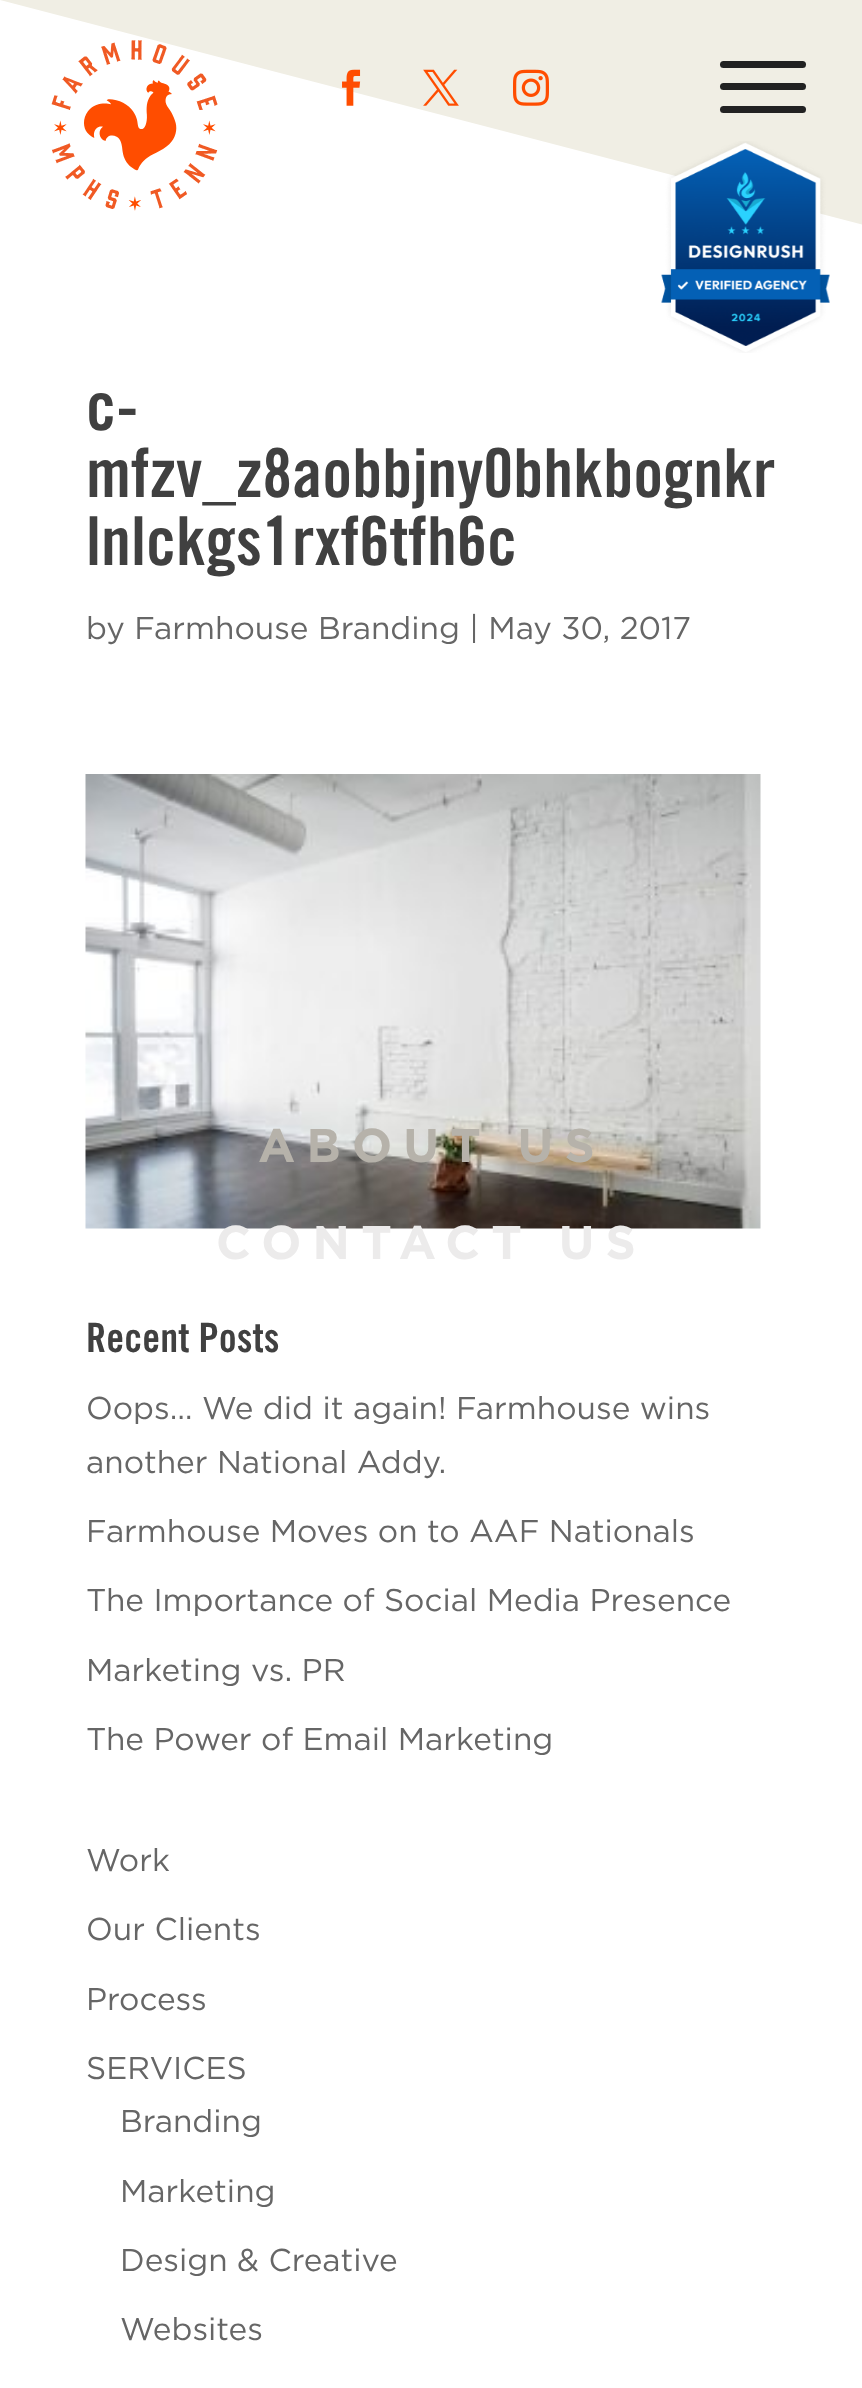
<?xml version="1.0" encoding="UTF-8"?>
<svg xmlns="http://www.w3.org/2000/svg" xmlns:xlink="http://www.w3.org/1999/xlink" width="862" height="2388">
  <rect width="100%" height="100%" fill="#ffffff" />
  <image x="85" y="774" width="676" height="455" xlink:href="image1.png" />
  <path d="M 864 225 v -225 h -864 z" fill="#f0eee4" />
  <image x="51" y="40" width="167" height="171" xlink:href="image2.png" />
  <image x="342" y="69" width="19" height="37" xlink:href="image3.png" />
  <image x="423" y="69" width="36" height="37" xlink:href="image4.png" />
  <image x="513" y="69" width="36" height="37" xlink:href="image5.png" />
  <rect x="720" y="61" width="86" height="7" rx="3.5" fill="#222222" />
  <rect x="720" y="83" width="86" height="7" rx="3.5" fill="#222222" />
  <rect x="720" y="106" width="86" height="7" rx="3.5" fill="#222222" />
  <image x="661" y="141" width="169" height="212" xlink:href="image6.png" />
  <text x="86" y="430" style="font-family: Trade Gothic; font-size: 67.5px; font-weight: bold; fill: #404040">c-</text>
  <text x="86" y="497" style="font-family: Trade Gothic; font-size: 67.5px; font-weight: bold; fill: #404040">mfzv_z8aobbjny0bhkbognkr</text>
  <text x="86" y="565" style="font-family: Trade Gothic; font-size: 67.5px; font-weight: bold; fill: #404040">lnlckgs1rxf6tfh6c</text>
  <text x="86" y="639" style="font-family: Gotham; font-size: 31.5px; fill: #666666">by Farmhouse Branding | May 30, 2017</text>
  <text x="86" y="1352" style="font-family: Trade Gothic; font-size: 40.5px; font-weight: bold; fill: #404040">Recent Posts</text>
  <text x="86" y="1419" style="font-family: Gotham; font-size: 31.5px; fill: #666666">Oops… We did it again! Farmhouse wins</text>
  <text x="86" y="1473" style="font-family: Gotham; font-size: 31.5px; fill: #666666">another National Addy.</text>
  <text x="86" y="1542" style="font-family: Gotham; font-size: 31.5px; fill: #666666">Farmhouse Moves on to AAF Nationals</text>
  <text x="86" y="1611" style="font-family: Gotham; font-size: 31.5px; fill: #666666">The Importance of Social Media Presence</text>
  <text x="86" y="1681" style="font-family: Gotham; font-size: 31.5px; fill: #666666">Marketing vs. PR</text>
  <text x="86" y="1750" style="font-family: Gotham; font-size: 31.5px; fill: #666666">The Power of Email Marketing</text>
  <text x="86" y="1871" style="font-family: Gotham; font-size: 31.5px; fill: #666666">Work</text>
  <text x="86" y="1940" style="font-family: Gotham; font-size: 31.5px; fill: #666666">Our Clients</text>
  <text x="86" y="2010" style="font-family: Gotham; font-size: 31.5px; fill: #666666">Process</text>
  <text x="86" y="2079" style="font-family: Gotham; font-size: 31.5px; fill: #666666">SERVICES</text>
  <text x="120" y="2132" style="font-family: Gotham; font-size: 31.5px; fill: #666666">Branding</text>
  <text x="120" y="2202" style="font-family: Gotham; font-size: 31.5px; fill: #666666">Marketing</text>
  <text x="120" y="2271" style="font-family: Gotham; font-size: 31.5px; fill: #666666">Design &amp; Creative</text>
  <text x="120" y="2340" style="font-family: Gotham; font-size: 31.5px; fill: #666666">Websites</text>
  <text x="258" y="1162" style="font-family: Gotham; font-size: 47.25px; font-weight: bold; letter-spacing: 11.25px; fill: #b6b2aa">ABOUT US</text>
  <text x="216" y="1259" style="font-family: Gotham; font-size: 47.25px; font-weight: bold; letter-spacing: 11.25px; fill: #ecebeb">CONTACT US</text>
</svg>
